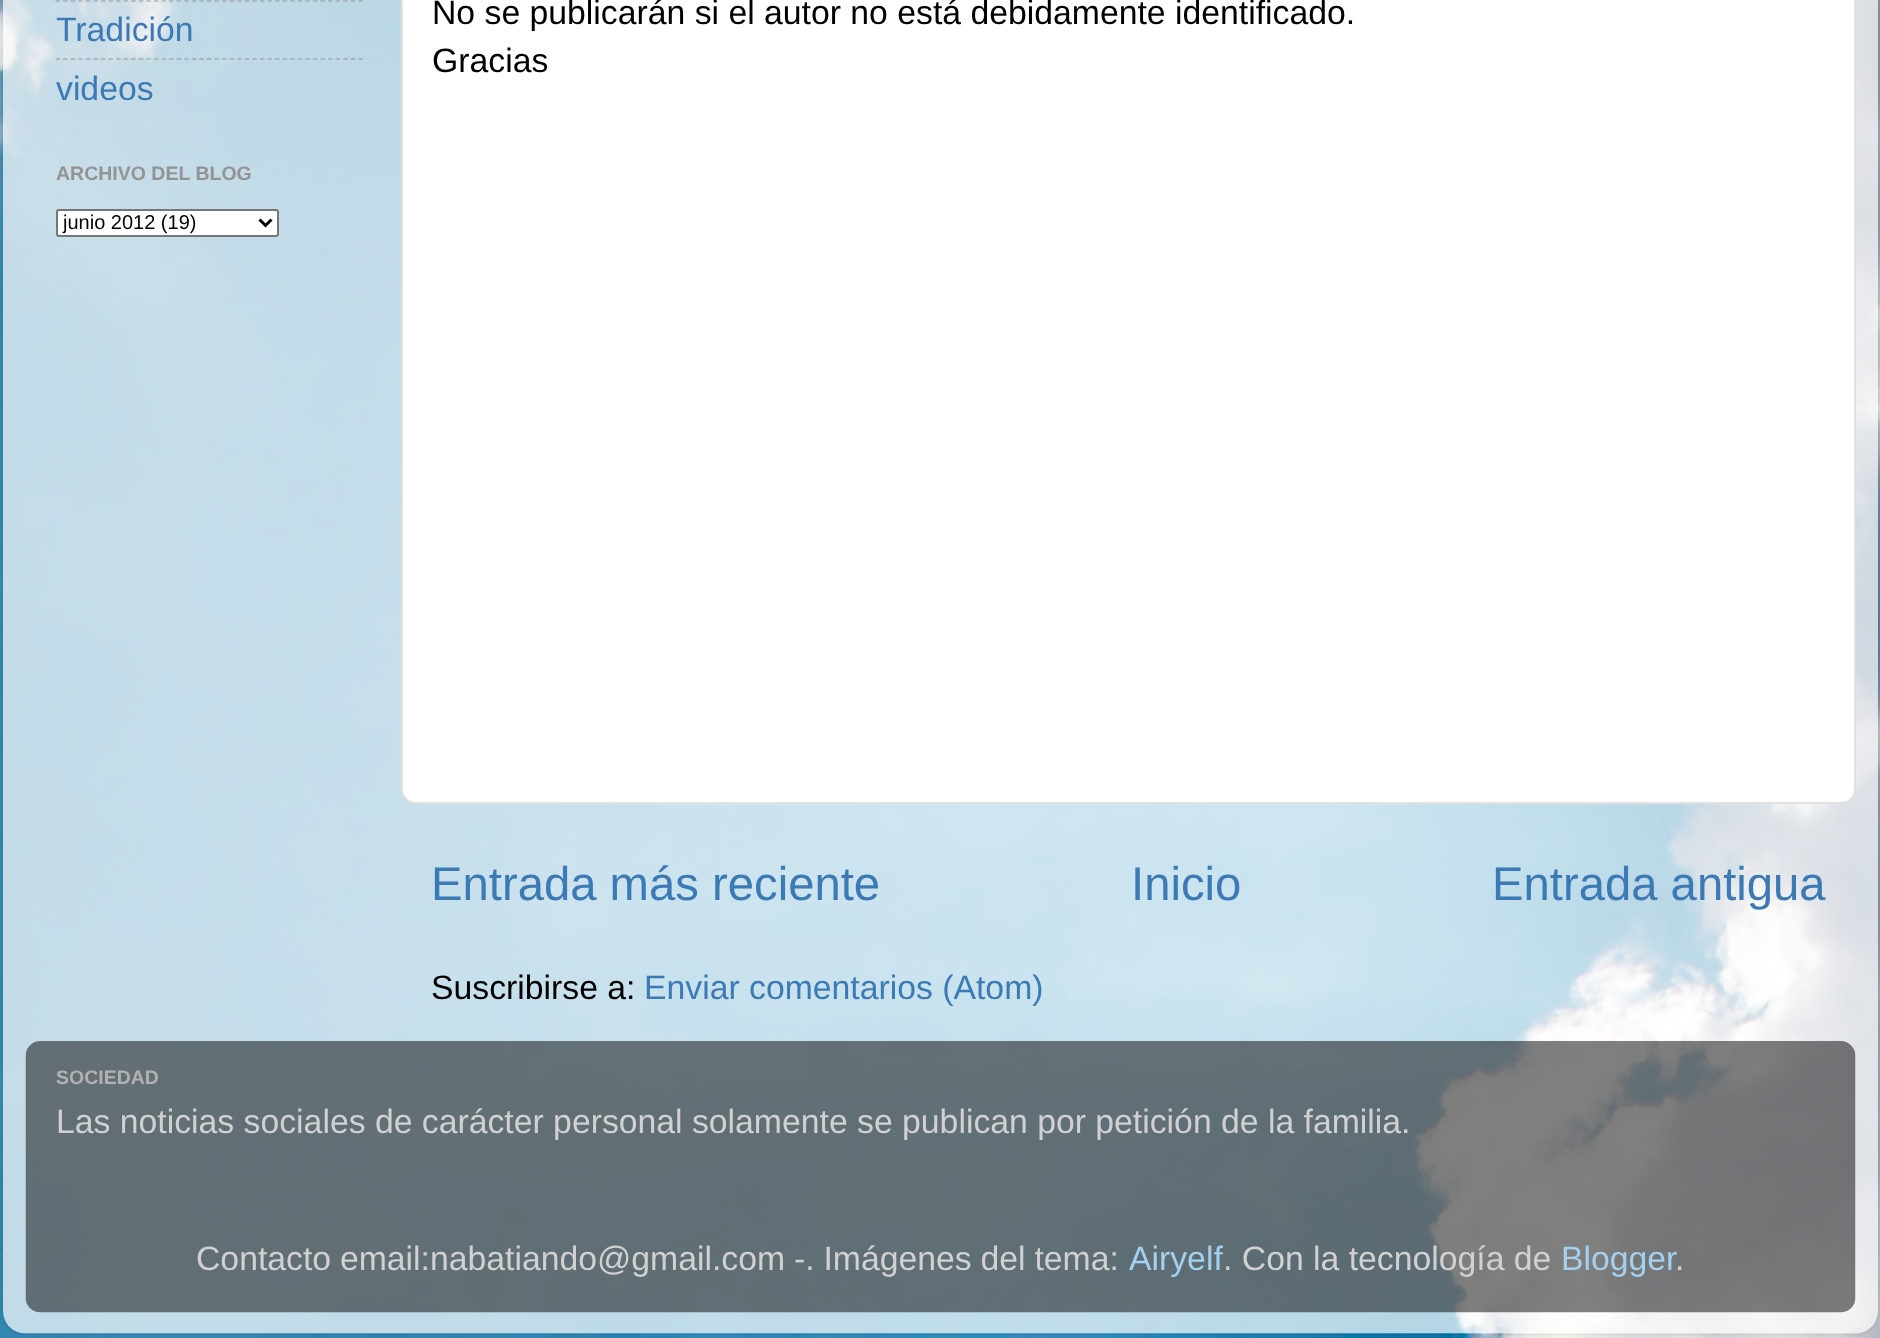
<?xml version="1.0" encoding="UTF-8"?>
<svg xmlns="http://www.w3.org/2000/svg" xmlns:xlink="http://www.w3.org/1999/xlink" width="1880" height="1338">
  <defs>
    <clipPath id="clip1"><path d="M 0 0 h 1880 v 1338 h -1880 z m 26 -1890 h 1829 c 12.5 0 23 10.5 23 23 v 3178 c 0 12.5 -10.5 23 -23 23 h -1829 c -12.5 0 -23 -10.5 -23 -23 v -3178 c 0 -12.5 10.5 -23 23 -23 z" clip-rule="evenodd" /></clipPath>
  </defs>
  <rect width="100%" height="100%" fill="#ffffff" />
  <image x="0" y="0" width="1880" height="1338" xlink:href="image1.png" />
  <g clip-path="url(#clip1)">
    <rect x="3" y="-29" width="1875" height="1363" rx="23" fill="#000000" fill-opacity="0.15" filter="blur(2px)" />
  </g>
  <image x="3" y="0" width="1875" height="1334" xlink:href="image2.png" />
  <path d="M 55.5 1 h 307.5" fill="none" stroke="#808080" stroke-opacity="0.5" stroke-width="1.5" stroke-dasharray="4.5 3.07" />
  <path d="M 55.5 59 h 307.5" fill="none" stroke="#808080" stroke-opacity="0.5" stroke-width="1.5" stroke-dasharray="4.5 3.07" />
  <rect x="57" y="210" width="221" height="26" rx="2" fill="#ffffff" stroke="#767676" stroke-width="2" />
  <path d="M 259.5 219.5 l 6 6 l 6 -6" fill="none" stroke="#000000" stroke-width="3" />
  <rect x="402" y="-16" width="1453" height="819" rx="14" fill="#ffffff" stroke="#e1e1e1" stroke-width="2" />
  <image x="25" y="1041" width="1831" height="272" xlink:href="image3.png" />
  <text x="56" y="41" style="font-family: Liberation Sans; font-size: 33.75px; fill: #3c7ab5">Tradición</text>
  <text x="56" y="100" style="font-family: Liberation Sans; font-size: 33.75px; fill: #3c7ab5">videos</text>
  <text x="56" y="180" style="font-family: Liberation Sans; font-size: 19.5px; font-weight: bold; fill: #939393">ARCHIVO DEL BLOG</text>
  <text x="63" y="229" style="font-family: Liberation Sans; font-size: 20px; fill: #000000">junio 2012 (19)</text>
  <text x="432" y="24" style="font-family: Liberation Sans; font-size: 33.75px; fill: #000000">No se publicarán si el autor no está debidamente identificado.</text>
  <text x="432" y="72" style="font-family: Liberation Sans; font-size: 33.75px; fill: #000000">Gracias</text>
  <text x="431" y="900" style="font-family: Liberation Sans; font-size: 47.25px; fill: #3c7ab5">Entrada más reciente</text>
  <text x="1131" y="900" style="font-family: Liberation Sans; font-size: 47.25px; fill: #3c7ab5">Inicio</text>
  <text x="1492" y="900" style="font-family: Liberation Sans; font-size: 47.25px; fill: #3c7ab5">Entrada antigua</text>
  <text x="431" y="999" style="font-family: Liberation Sans; font-size: 33.75px; fill: #000000">Suscribirse a:</text>
  <text x="644" y="999" style="font-family: Liberation Sans; font-size: 33.75px; fill: #3c7ab5">Enviar comentarios (Atom)</text>
  <text x="56" y="1084" style="font-family: Liberation Sans; font-size: 19.5px; font-weight: bold; fill: #b1b1b1">SOCIEDAD</text>
  <text x="56" y="1133" style="font-family: Liberation Sans; font-size: 33.75px; fill: #d1d1d1">Las noticias sociales de carácter personal solamente se publican por petición de la familia.</text>
  <text x="196" y="1270" word-spacing="-0.5" style="font-family: Liberation Sans; font-size: 33.75px; fill: #d1d1d1">Contacto email:nabatiando@gmail.com -. Imágenes del tema:</text>
  <text x="1129" y="1270" style="font-family: Liberation Sans; font-size: 33.75px; fill: #a3d1ef">Airyelf</text>
  <text x="1223" y="1270" style="font-family: Liberation Sans; font-size: 33.75px; fill: #d1d1d1">. Con la tecnología de</text>
  <text x="1561" y="1270" style="font-family: Liberation Sans; font-size: 33.75px; fill: #a3d1ef">Blogger</text>
  <text x="1675" y="1270" style="font-family: Liberation Sans; font-size: 33.75px; fill: #d1d1d1">.</text>
</svg>
